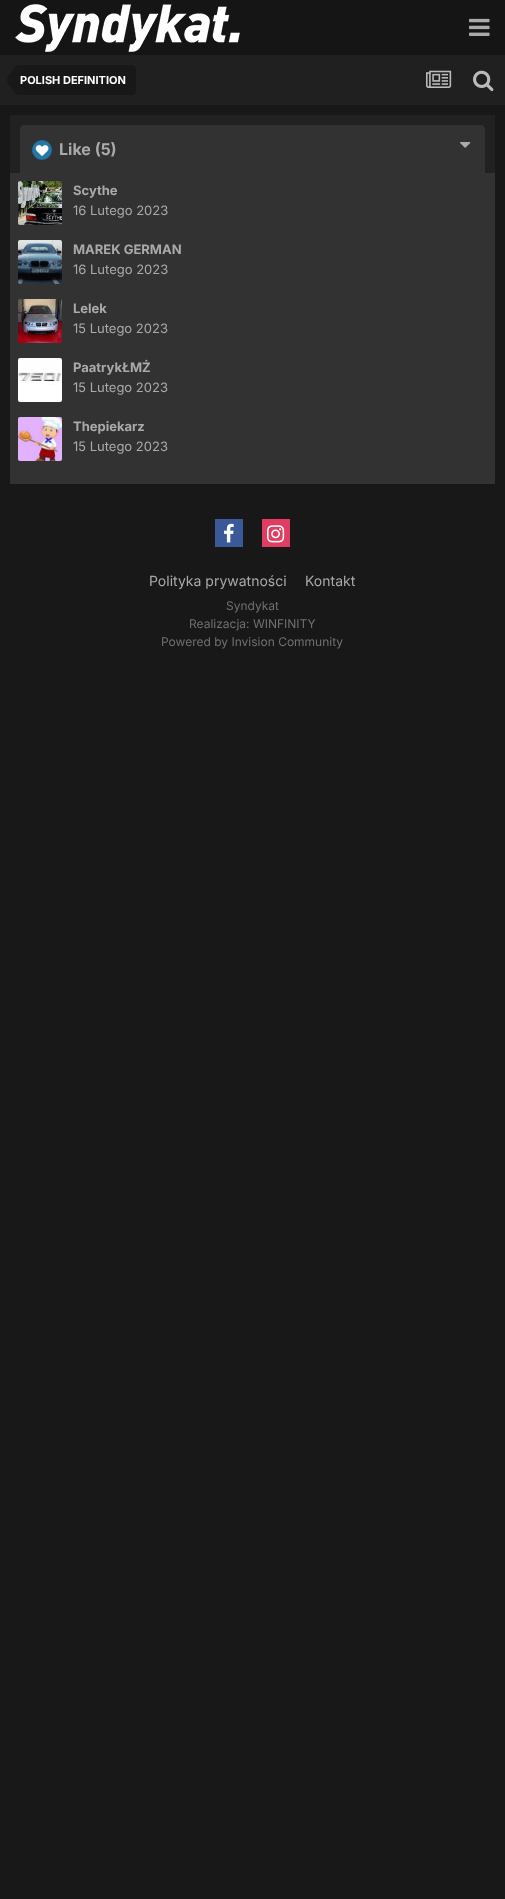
<?xml version="1.0" encoding="UTF-8"?>
<svg xmlns="http://www.w3.org/2000/svg" xmlns:xlink="http://www.w3.org/1999/xlink" width="505" height="1899">
  <rect width="100%" height="100%" fill="#181818" />
  <rect width="505" height="55" fill="#151515" />
  <image x="15" y="4" width="225" height="48" xlink:href="image1.png" />
  <image x="469" y="18" width="21" height="18" xlink:href="image2.png" />
  <rect y="55" width="505" height="50" fill="#202020" />
  <path d="M 20 65 h 111 c 3 0 5 2 5 5 v 20 c 0 3 -2 5 -5 5 h -111 z" fill="#181818" />
  <path d="M 20 80 v 15 c -4.5 0 -6.5 -4.5 -9 -8 c -1.5 -2 -4 -4 -4 -7 z m 0 0 h -13 c 0 -3 2.5 -5 4 -7 c 2.5 -3.5 4.5 -8 9 -8 z" fill="#181818" />
  <image x="426" y="70" width="26" height="18" xlink:href="image3.png" />
  <image x="473" y="70" width="21" height="22" xlink:href="image4.png" />
  <rect x="10" y="115" width="485" height="58" fill="#212121" />
  <path d="M 24 125 h 457 c 2 0 4 2 4 4 v 44 h -465 v -44 c 0 -2 2 -4 4 -4 z" fill="#323232" />
  <image x="32" y="140" width="20" height="20" xlink:href="image5.png" />
  <image x="460" y="142" width="11" height="6" xlink:href="image6.png" />
  <rect x="10" y="173" width="485" height="311" fill="#323232" />
  <image x="18" y="181" width="44" height="44" xlink:href="image7.png" />
  <image x="18" y="240" width="44" height="44" xlink:href="image8.png" />
  <image x="18" y="299" width="44" height="44" xlink:href="image9.png" />
  <image x="18" y="358" width="44" height="44" xlink:href="image10.png" />
  <image x="18" y="417" width="44" height="44" xlink:href="image11.png" />
  <rect x="215" y="519" width="28" height="28" fill="#3b5998" />
  <image x="224" y="523" width="10" height="20" xlink:href="image12.png" />
  <rect x="262" y="519" width="28" height="28" fill="#e13d62" />
  <image x="267" y="525" width="18" height="18" xlink:href="image13.png" />
  <text x="20" y="84" style="font-family: Inter; font-size: 11px; font-weight: bold; fill: #ffffff">POLISH DEFINITION</text>
  <text x="59" y="155" style="font-family: Inter; font-size: 16px; font-weight: bold; fill: #aaaaaa">Like (5)</text>
  <text x="73" y="195" style="font-family: Inter; font-size: 13px; font-weight: bold; fill: #aaaaaa">Scythe</text>
  <text x="73" y="215" style="font-family: Inter; font-size: 13px; fill: #aaaaaa">16 Lutego 2023</text>
  <text x="73" y="254" style="font-family: Inter; font-size: 13px; font-weight: bold; fill: #aaaaaa">MAREK GERMAN</text>
  <text x="73" y="274" style="font-family: Inter; font-size: 13px; fill: #aaaaaa">16 Lutego 2023</text>
  <text x="73" y="313" style="font-family: Inter; font-size: 13px; font-weight: bold; fill: #aaaaaa">Lelek</text>
  <text x="73" y="333" style="font-family: Inter; font-size: 13px; fill: #aaaaaa">15 Lutego 2023</text>
  <text x="73" y="372" style="font-family: Inter; font-size: 13px; font-weight: bold; fill: #aaaaaa">PaatrykŁMŻ</text>
  <text x="73" y="392" style="font-family: Inter; font-size: 13px; fill: #aaaaaa">15 Lutego 2023</text>
  <text x="73" y="431" style="font-family: Inter; font-size: 13px; font-weight: bold; fill: #aaaaaa">Thepiekarz</text>
  <text x="73" y="451" style="font-family: Inter; font-size: 13px; fill: #aaaaaa">15 Lutego 2023</text>
  <text x="149" y="586" style="font-family: Inter; font-size: 14px; fill: #aaaaaa">Polityka prywatności</text>
  <text x="305" y="586" style="font-family: Inter; font-size: 14px; fill: #aaaaaa">Kontakt</text>
  <text x="226" y="610" style="font-family: Inter; font-size: 12px; fill: #707070">Syndykat</text>
  <text x="189" y="628" style="font-family: Inter; font-size: 12px; fill: #707070">Realizacja: WINFINITY</text>
  <text x="161" y="646" style="font-family: Inter; font-size: 12px; fill: #707070">Powered by Invision Community</text>
</svg>
